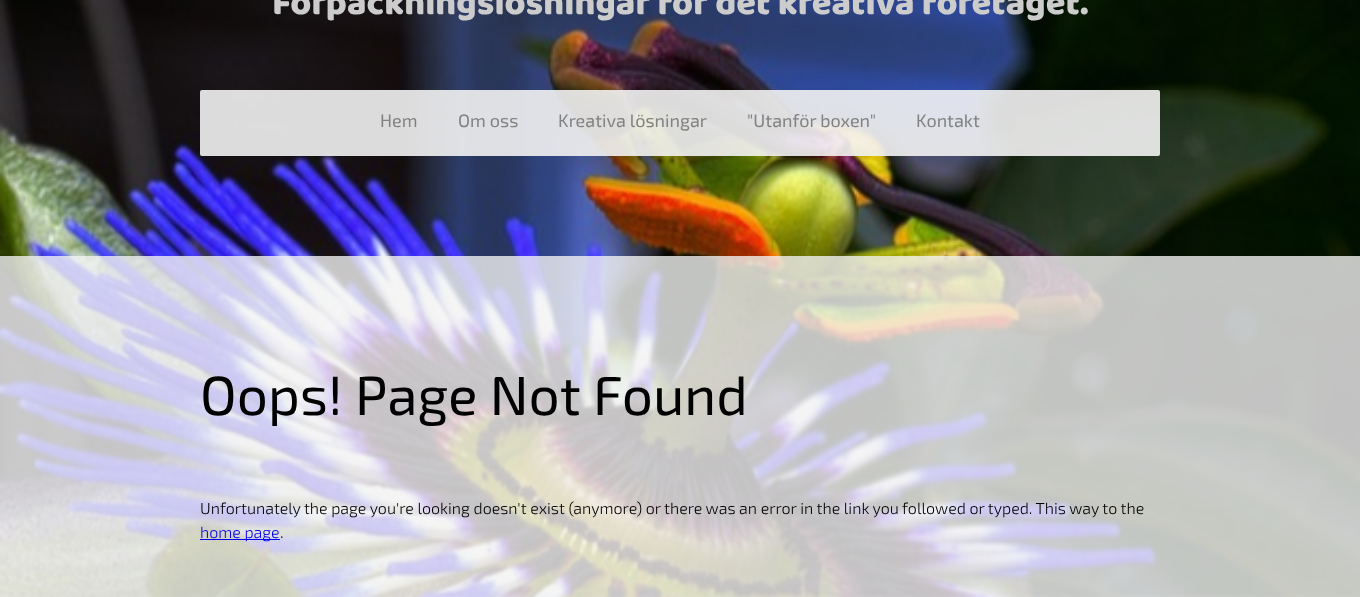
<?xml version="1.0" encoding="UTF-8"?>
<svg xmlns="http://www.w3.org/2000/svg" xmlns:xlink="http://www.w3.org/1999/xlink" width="1360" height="597">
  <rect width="100%" height="100%" fill="#ffffff" />
  <image x="0" y="0" width="1360" height="597" xlink:href="image1.png" />
  <rect x="200" y="90" width="960" height="66" rx="2" fill="#f3f3f3" fill-opacity="0.9" />
  <rect y="256" width="1360" height="341" fill="#f3f3f3" fill-opacity="0.8" />
  <rect x="200" y="539" width="80" height="1" fill="#0000ee" />
  <text x="272" y="14" style="font-family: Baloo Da; font-size: 36px; fill: #cccccc">Förpackningslösningar för det kreativa företaget.</text>
  <text x="380" y="127" style="font-family: 'Exo 2'; font-size: 18px; fill: #828282">Hem</text>
  <text x="458" y="127" style="font-family: 'Exo 2'; font-size: 18px; fill: #828282">Om oss</text>
  <text x="558" y="127" style="font-family: 'Exo 2'; font-size: 18px; fill: #828282">Kreativa lösningar</text>
  <text x="747" y="127" style="font-family: 'Exo 2'; font-size: 18px; fill: #828282">"Utanför boxen"</text>
  <text x="916" y="127" style="font-family: 'Exo 2'; font-size: 18px; fill: #828282">Kontakt</text>
  <text x="200" y="415" style="font-family: 'Exo 2'; font-size: 55px; fill: #000000">Oops! Page Not Found</text>
  <text x="200" y="514" style="font-family: 'Exo 2'; font-size: 16px; font-weight: 300; fill: #000000">Unfortunately the page you're looking doesn't exist (anymore) or there was an error in the link you followed or typed. This way to the</text>
  <text x="200" y="538" style="font-family: 'Exo 2'; font-size: 16px; font-weight: 300; fill: #0000ee">home page</text>
  <text x="280" y="538" style="font-family: 'Exo 2'; font-size: 16px; font-weight: 300; fill: #000000">.</text>
</svg>
